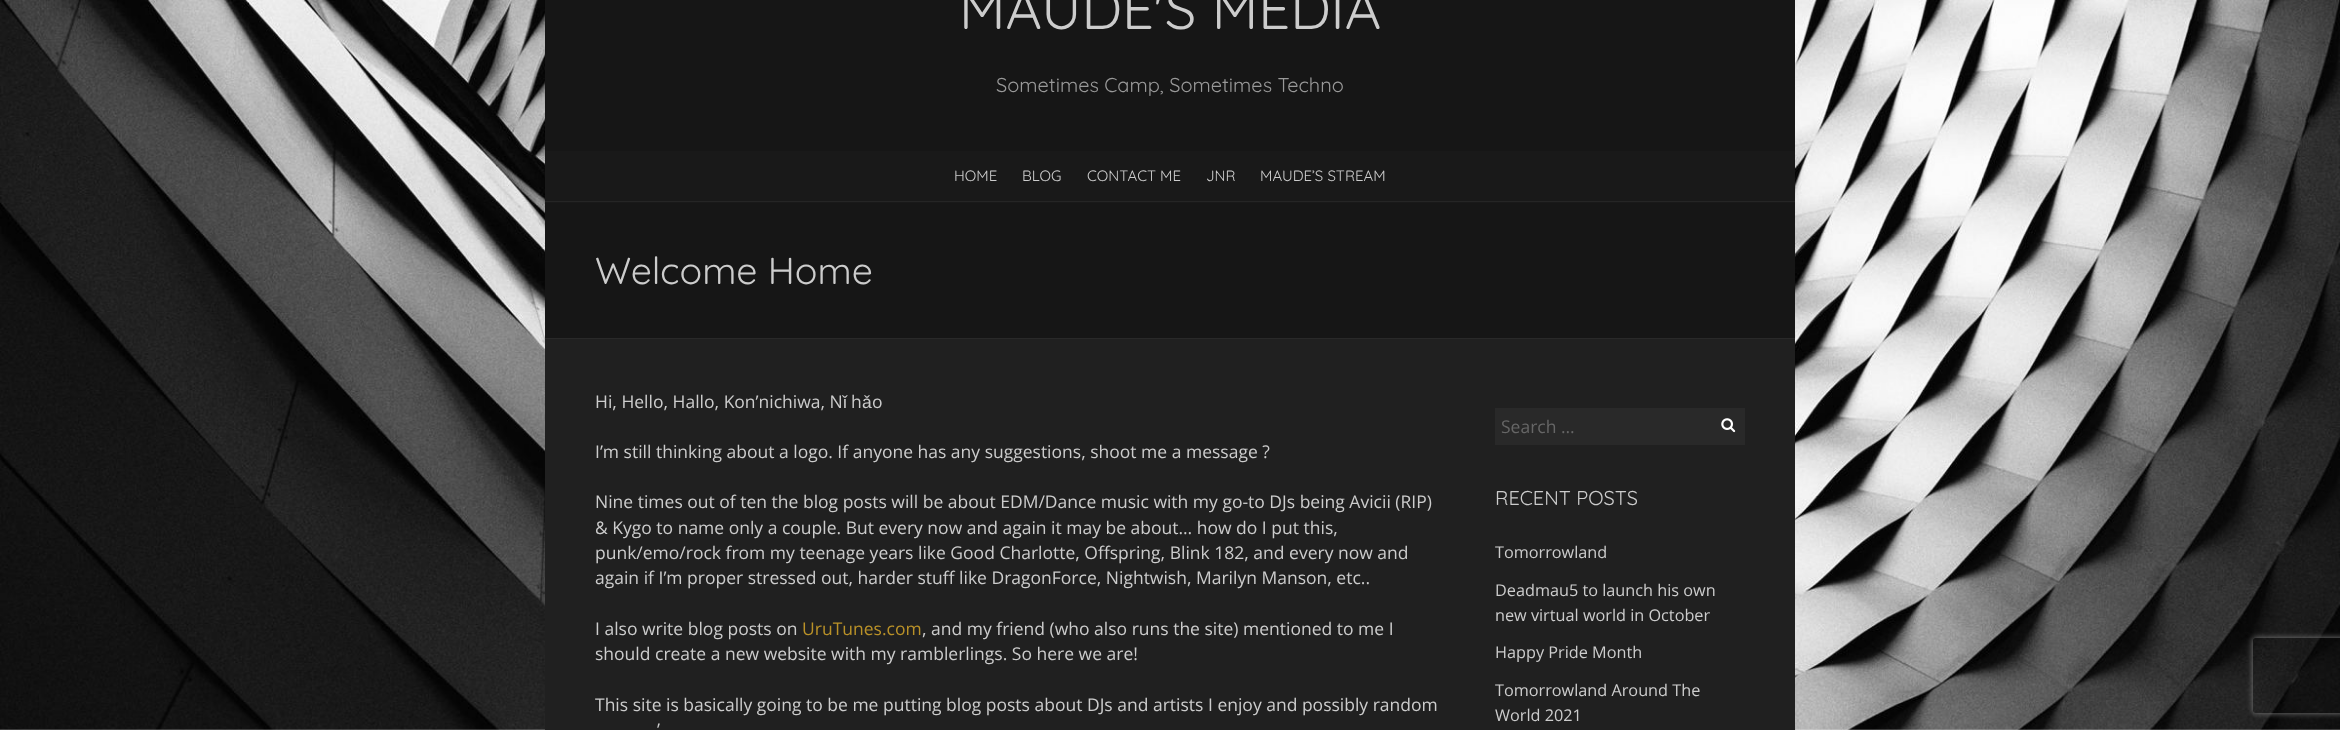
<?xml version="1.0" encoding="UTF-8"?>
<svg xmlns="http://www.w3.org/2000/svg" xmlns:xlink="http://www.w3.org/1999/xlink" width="2340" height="730">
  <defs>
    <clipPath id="clip1"><path d="M 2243 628 h 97 v 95 h -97 z m 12.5 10 h 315 c 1.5 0 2.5 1 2.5 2.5 v 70 c 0 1.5 -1 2.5 -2.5 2.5 h -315 c -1.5 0 -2.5 -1 -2.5 -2.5 v -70 c 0 -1.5 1 -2.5 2.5 -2.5 z" clip-rule="evenodd" /></clipPath>
  </defs>
  <rect width="100%" height="100%" fill="#ffffff" />
  <image x="0" y="0" width="2340" height="730" xlink:href="image1.png" />
  <rect x="545" y="339" width="1250" height="391" fill="#202020" />
  <rect x="545" width="1250" height="151" fill="#161616" />
  <rect x="545" y="151" width="1250" height="52" fill="#191919" />
  <rect x="545" y="201" width="1250" height="1" fill="#252525" />
  <rect x="545" y="203" width="1250" height="135" fill="#161616" />
  <rect x="545" y="338" width="1250" height="1" fill="#292929" />
  <rect x="1495" y="408" width="250" height="37" fill="#292929" />
  <image x="1721" y="418" width="15" height="15" xlink:href="image2.png" />
  <g clip-path="url(#clip1)">
    <rect x="2253" y="638" width="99" height="75" rx="2.5" fill="#808080" filter="blur(3px)" />
  </g>
  <text x="959" y="29" style="font-family: Quicksand; font-size: 56.25px; fill: #cccccc">MAUDE'S MEDIA</text>
  <text x="996" y="92" style="font-family: Quicksand; font-size: 20px; fill: #999999">Sometimes Camp, Sometimes Techno</text>
  <text x="954" y="181" style="font-family: Quicksand; font-size: 15px; fill: #cccccc">HOME</text>
  <text x="1022" y="181" style="font-family: Quicksand; font-size: 15px; fill: #cccccc">BLOG</text>
  <text x="1087" y="181" style="font-family: Quicksand; font-size: 15px; fill: #cccccc">CONTACT ME</text>
  <text x="1206" y="181" style="font-family: Quicksand; font-size: 15px; fill: #cccccc">JNR</text>
  <text x="1260" y="181" style="font-family: Quicksand; font-size: 15px; fill: #cccccc">MAUDE’S STREAM</text>
  <text x="595" y="284" style="font-family: Quicksand; font-size: 37.5px; fill: #cccccc">Welcome Home</text>
  <text x="595" y="408" style="font-family: Open Sans; font-size: 17.5px; fill: #cccccc">Hi, Hello, Hallo, Kon’nichiwa, N</text>
  <text x="843" y="408" style="font-family: Liberation Sans; font-size: 17.5px; fill: #cccccc">ǐ</text>
  <text x="851" y="408" style="font-family: Open Sans; font-size: 17.5px; fill: #cccccc">h</text>
  <text x="862" y="408" style="font-family: Liberation Sans; font-size: 17.5px; fill: #cccccc">ǎ</text>
  <text x="872" y="408" style="font-family: Open Sans; font-size: 17.5px; fill: #cccccc">o</text>
  <text x="595" y="458" style="font-family: Open Sans; font-size: 17.5px; fill: #cccccc">I’m still thinking about a logo. If anyone has any suggestions, shoot me a message ?</text>
  <text x="595" y="508" style="font-family: Open Sans; font-size: 17.5px; fill: #cccccc">Nine times out of ten the blog posts will be about EDM/Dance music with my go-to DJs being Avicii (RIP)</text>
  <text x="595" y="534" style="font-family: Open Sans; font-size: 17.5px; fill: #cccccc">&amp; Kygo to name only a couple. But every now and again it may be about… how do I put this,</text>
  <text x="595" y="559" style="font-family: Open Sans; font-size: 17.5px; fill: #cccccc">punk/emo/rock from my teenage years like Good Charlotte, Offspring, Blink 182, and every now and</text>
  <text x="595" y="584" style="font-family: Open Sans; font-size: 17.5px; fill: #cccccc">again if I’m proper stressed out, harder stuff like DragonForce, Nightwish, Marilyn Manson, etc..</text>
  <text x="595" y="635" style="font-family: Open Sans; font-size: 17.5px; fill: #cccccc">I also write blog posts on</text>
  <text x="802" y="635" style="font-family: Open Sans; font-size: 17.5px; fill: #b99128">UruTunes.com</text>
  <text x="922" y="635" style="font-family: Open Sans; font-size: 17.5px; fill: #cccccc">, and my friend (who also runs the site) mentioned to me I</text>
  <text x="595" y="660" style="font-family: Open Sans; font-size: 17.5px; fill: #cccccc">should create a new website with my ramblerlings. So here we are!</text>
  <text x="595" y="711" style="font-family: Open Sans; font-size: 17.5px; fill: #cccccc">This site is basically going to be me putting blog posts about DJs and artists I enjoy and possibly random</text>
  <text x="657" y="736" style="font-family: Open Sans; font-size: 17.5px; fill: #cccccc">’</text>
  <text x="1501" y="433" style="font-family: Open Sans; font-size: 17.5px; fill: #666666">Search …</text>
  <text x="1495" y="505" style="font-family: Quicksand; font-size: 20px; fill: #cccccc">RECENT POSTS</text>
  <text x="1495" y="558" style="font-family: Open Sans; font-size: 16.25px; fill: #cccccc">Tomorrowland</text>
  <text x="1495" y="596" style="font-family: Open Sans; font-size: 16.25px; fill: #cccccc">Deadmau5 to launch his own</text>
  <text x="1495" y="621" style="font-family: Open Sans; font-size: 16.25px; fill: #cccccc">new virtual world in October</text>
  <text x="1495" y="658" style="font-family: Open Sans; font-size: 16.25px; fill: #cccccc">Happy Pride Month</text>
  <text x="1495" y="696" style="font-family: Open Sans; font-size: 16.25px; fill: #cccccc">Tomorrowland Around The</text>
  <text x="1495" y="721" style="font-family: Open Sans; font-size: 16.25px; fill: #cccccc">World 2021</text>
</svg>
